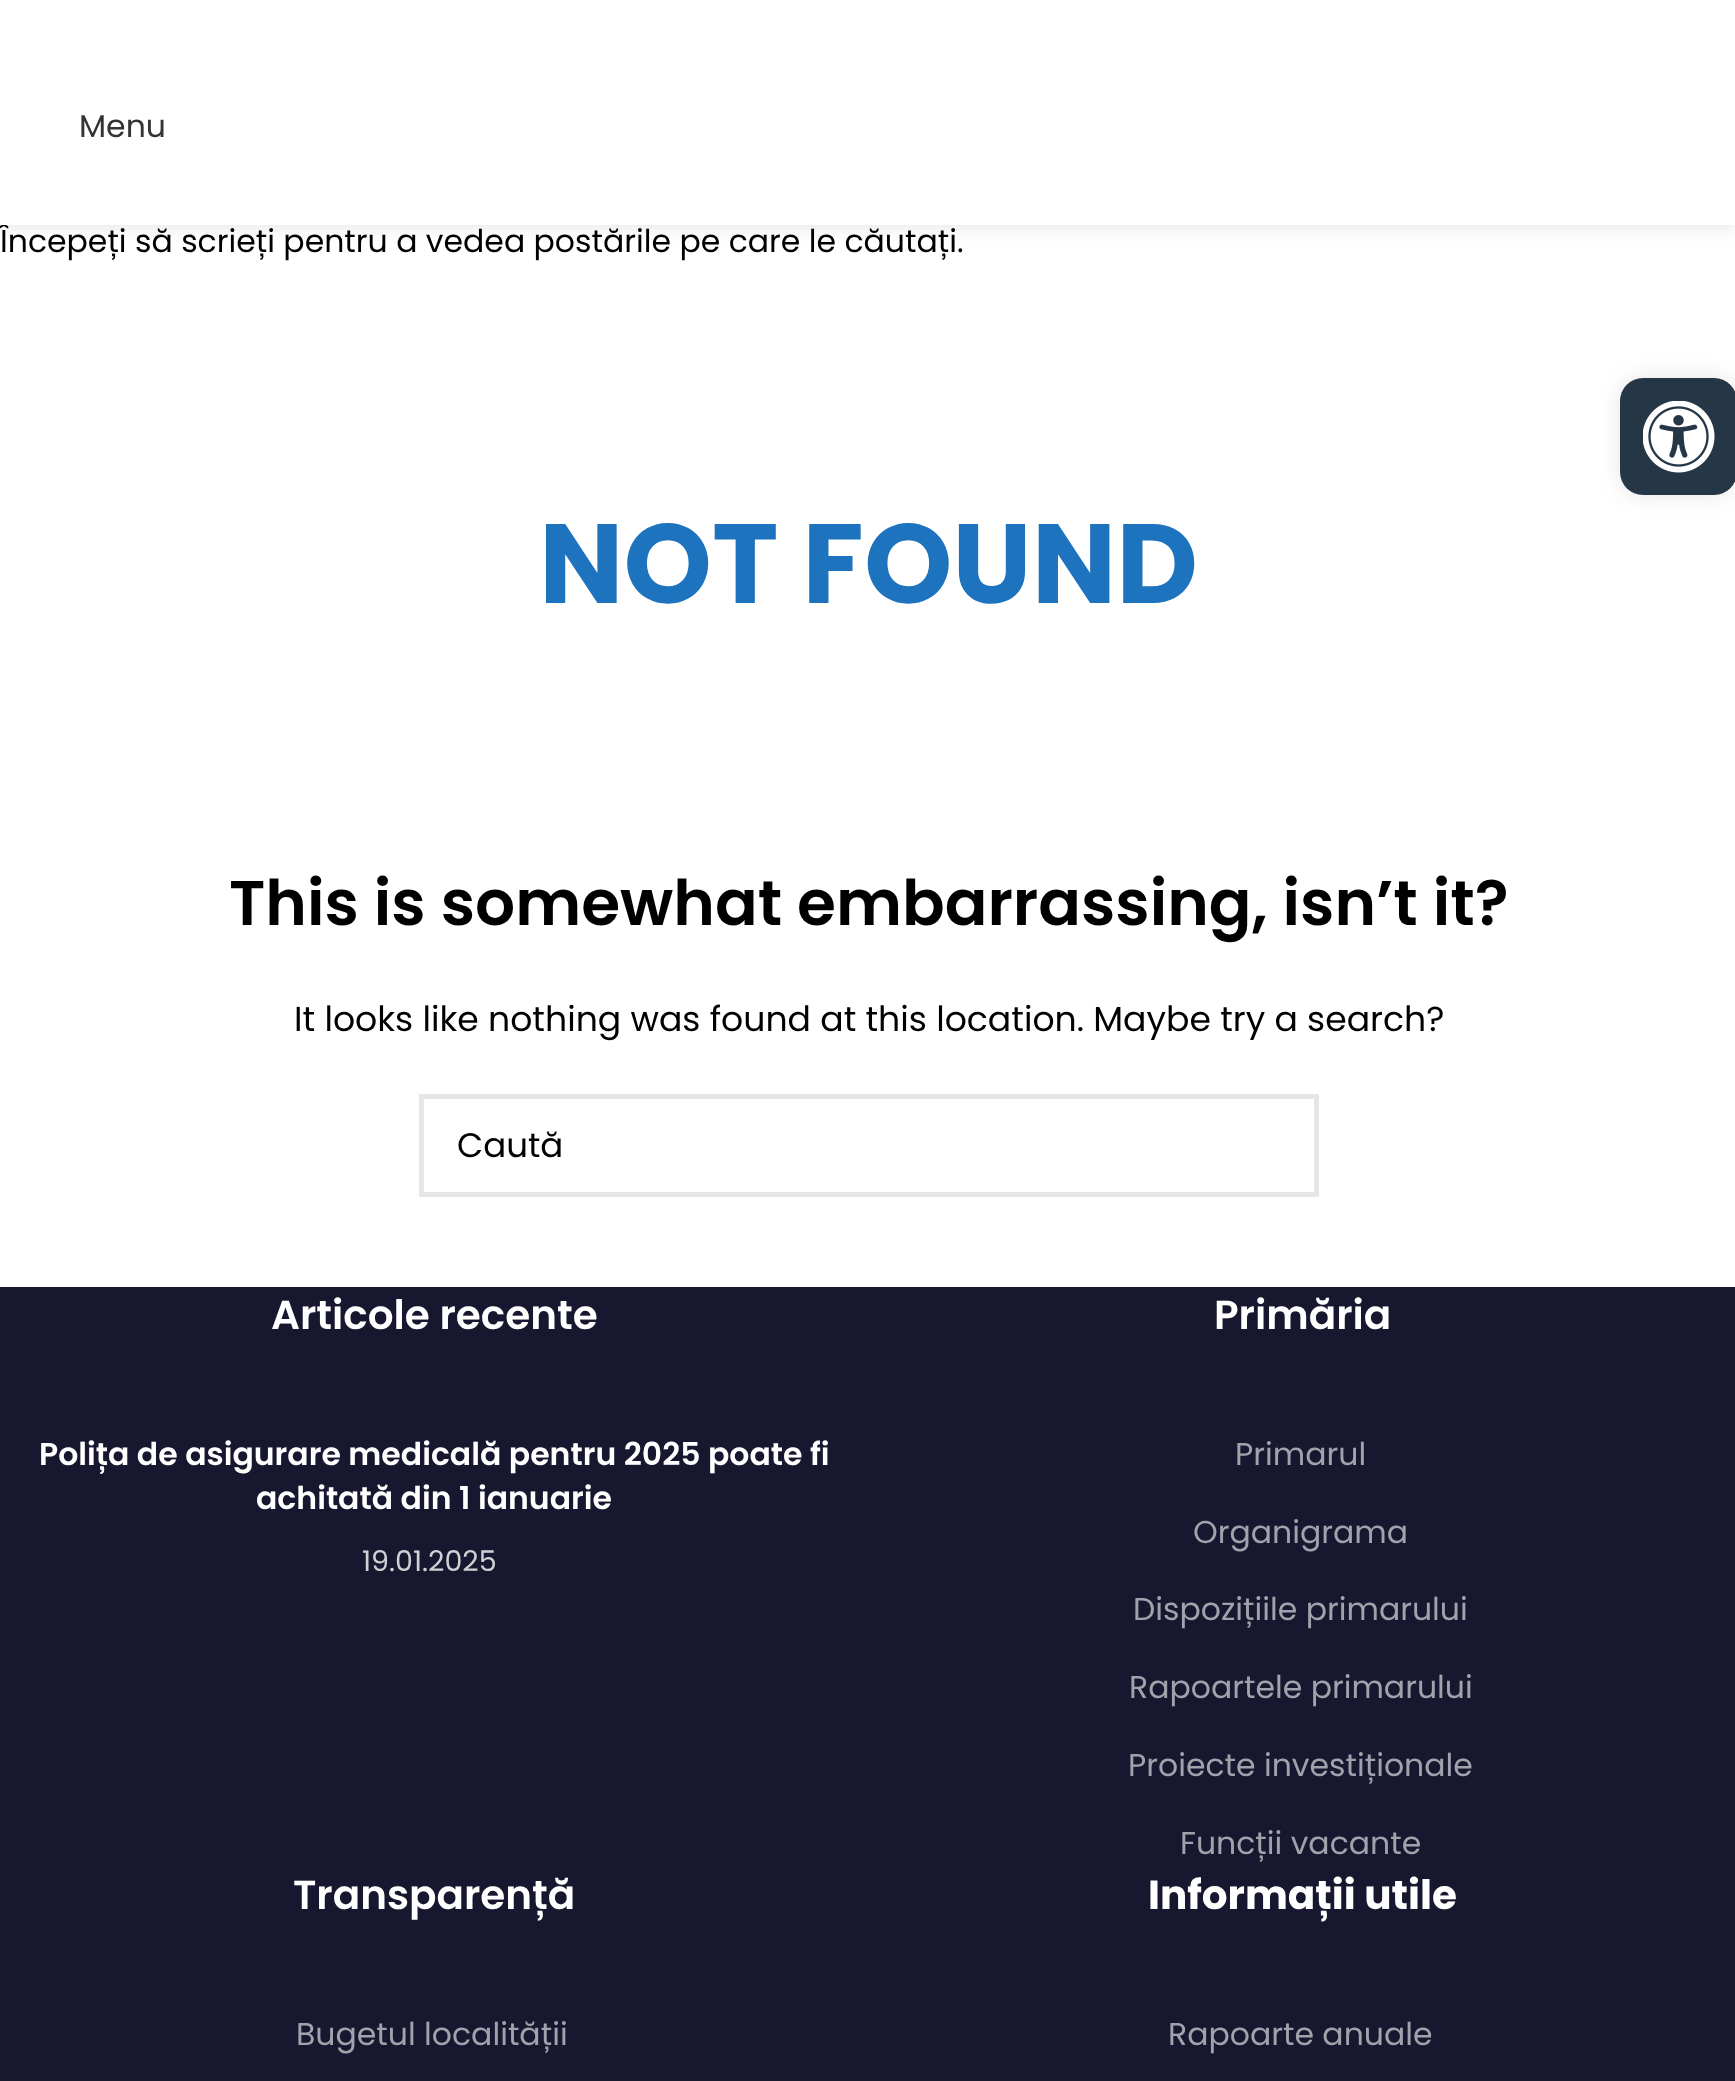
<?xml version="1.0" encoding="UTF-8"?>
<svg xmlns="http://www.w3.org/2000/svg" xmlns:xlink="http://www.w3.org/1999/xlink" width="1735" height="2081">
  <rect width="100%" height="100%" fill="#ffffff" />
  <rect y="2" width="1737" height="225" fill="#000000" fill-opacity="0.1" filter="blur(9px)" />
  <rect x="421.5" y="1096.5" width="895" height="98" fill="none" stroke="#e6e6e6" stroke-width="5" />
  <rect y="1287" width="1735" height="794" fill="#17172f" />
  <rect x="1620" y="378" width="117" height="117" rx="23" fill="#000000" fill-opacity="0.1" filter="blur(11px)" />
  <rect x="1620" y="378" width="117" height="117" rx="23" fill="#253747" />
  <image x="1643" y="401" width="72" height="72" xlink:href="image1.png" />
  <text x="539" y="603" style="font-family: Poppins; font-size: 112.5px; font-weight: bold; fill: #1e73be">NOT FOUND</text>
  <text x="229" y="925" style="font-family: Poppins; font-size: 63px; font-weight: 600; fill: #000000">This is somewhat embarrassing, isn’t it?</text>
  <text x="294" y="1031" style="font-family: Poppins; font-size: 34.65px; fill: #000000">It looks like nothing was found at this location. Maybe try a search?</text>
  <text x="457" y="1157" style="font-family: Poppins; font-size: 34px; fill: #000000">Caută</text>
  <text x="271" y="1329" style="font-family: Poppins; font-size: 40.5px; font-weight: 600; fill: #ffffff">Articole recente</text>
  <text x="39" y="1465" style="font-family: Poppins; font-size: 31.5px; font-weight: 600; fill: #ffffff">Polița de asigurare medicală pentru 2025 poate fi</text>
  <text x="256" y="1509" style="font-family: Poppins; font-size: 31.5px; font-weight: 600; fill: #ffffff">achitată din 1 ianuarie</text>
  <text x="362" y="1571" style="font-family: Poppins; font-size: 28.5px; fill: #d1d1d5">19.01.2025</text>
  <text x="1214" y="1329" style="font-family: Poppins; font-size: 40.5px; font-weight: 600; fill: #ffffff">Primăria</text>
  <text x="1235" y="1465" style="font-family: Poppins; font-size: 31.5px; fill: #a2a2ac">Primarul</text>
  <text x="1193" y="1543" style="font-family: Poppins; font-size: 31.5px; fill: #a2a2ac">Organigrama</text>
  <text x="1133" y="1620" style="font-family: Poppins; font-size: 31.5px; fill: #a2a2ac">Dispozițiile primarului</text>
  <text x="1129" y="1698" style="font-family: Poppins; font-size: 31.5px; fill: #a2a2ac">Rapoartele primarului</text>
  <text x="1128" y="1776" style="font-family: Poppins; font-size: 31.5px; fill: #a2a2ac">Proiecte investiționale</text>
  <text x="1180" y="1854" style="font-family: Poppins; font-size: 31.5px; fill: #a2a2ac">Funcții vacante</text>
  <text x="293" y="1909" style="font-family: Poppins; font-size: 40.5px; font-weight: 600; fill: #ffffff">Transparență</text>
  <text x="296" y="2045" style="font-family: Poppins; font-size: 31.5px; fill: #a2a2ac">Bugetul localității</text>
  <text x="1148" y="1909" style="font-family: Poppins; font-size: 40.5px; font-weight: bold; fill: #ffffff">Informații utile</text>
  <text x="1168" y="2045" style="font-family: Poppins; font-size: 31.5px; fill: #a2a2ac">Rapoarte anuale</text>
  <text x="0" y="252" style="font-family: Poppins; font-size: 31.5px; fill: #000000">Începeți să scrieți pentru a vedea postările pe care le căutați.</text>
  <rect width="1735" height="225" fill="#ffffff" />
  <text x="79" y="137" style="font-family: Poppins; font-size: 31.5px; fill: #333333">Menu</text>
</svg>
